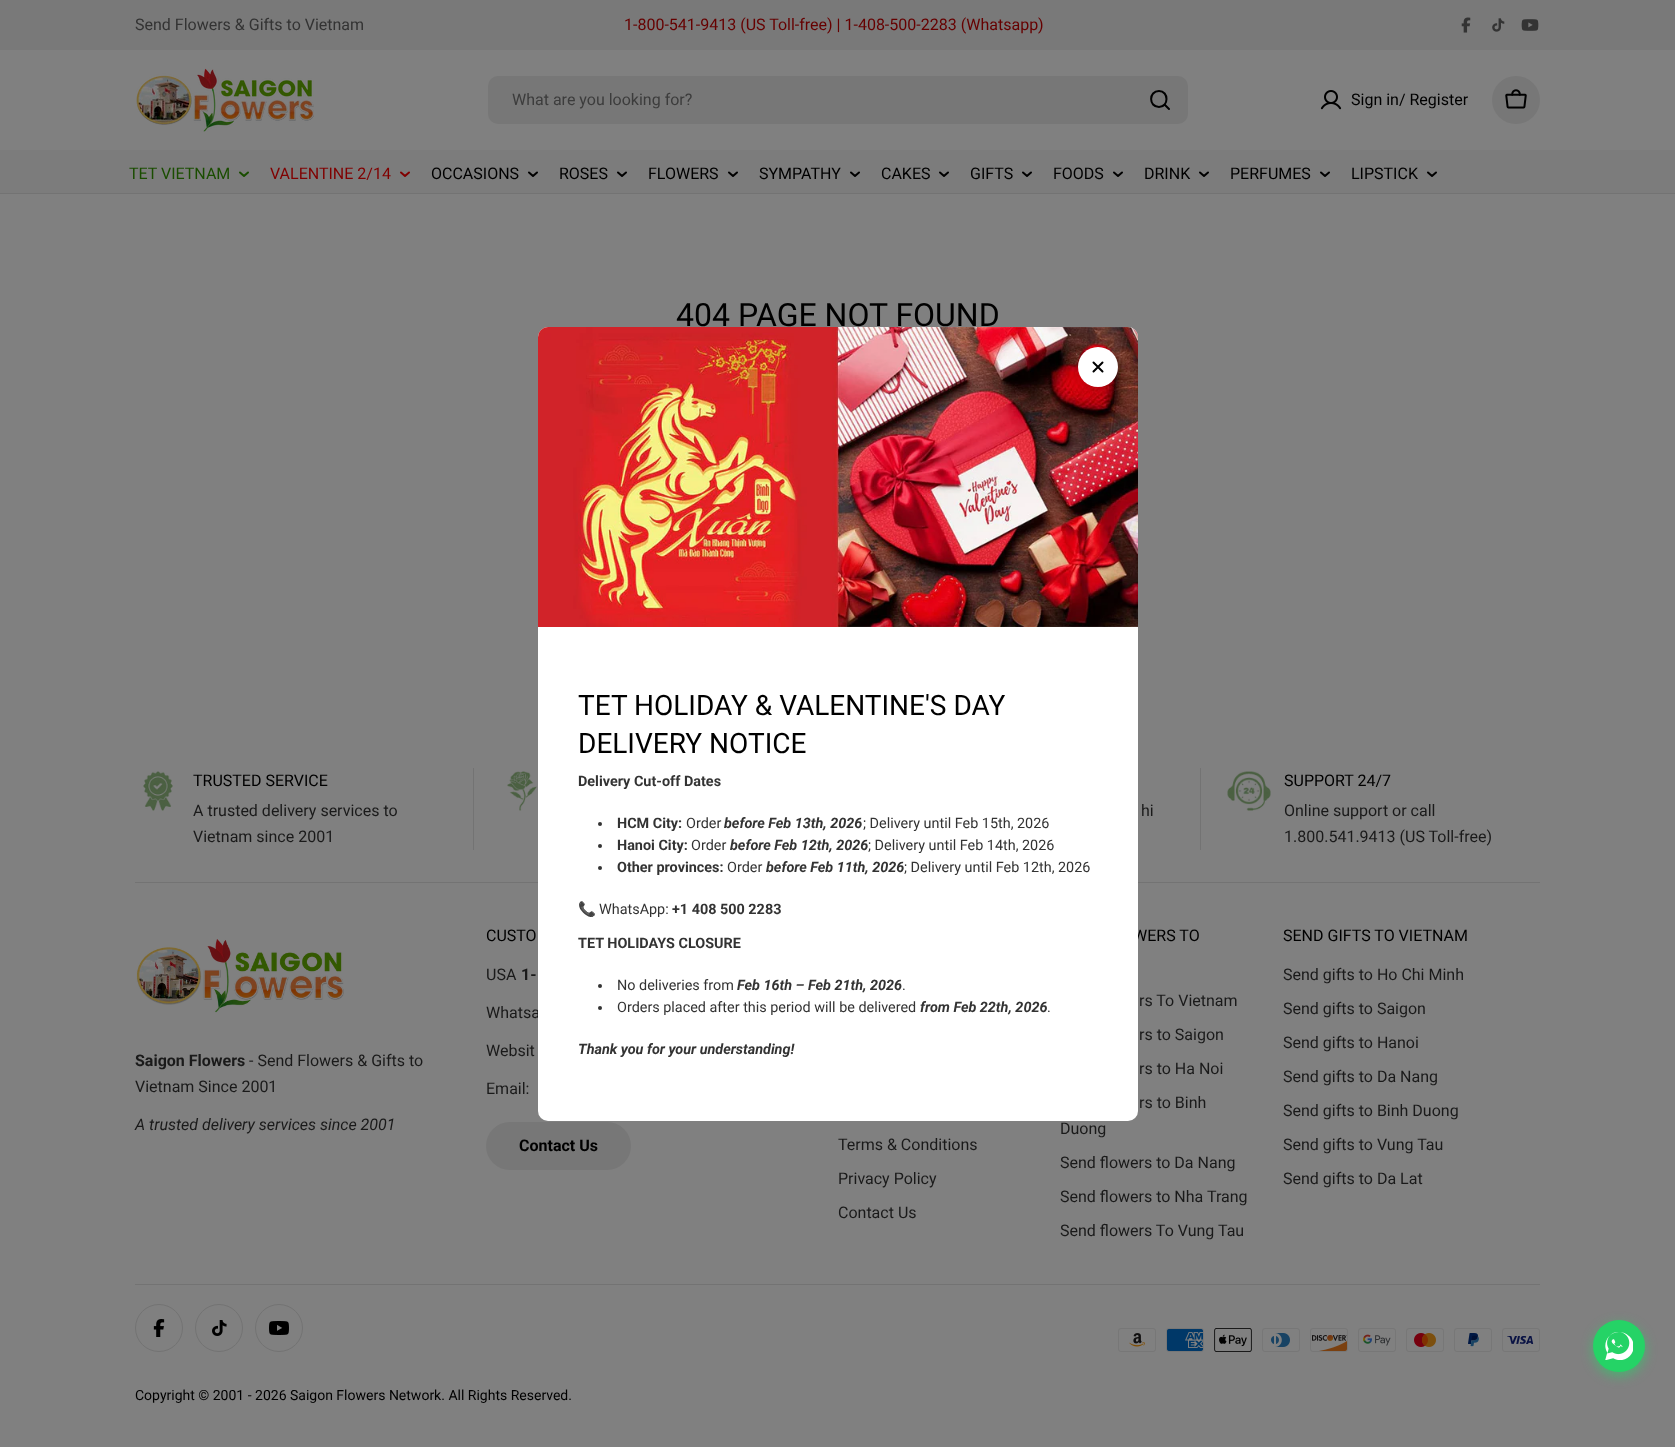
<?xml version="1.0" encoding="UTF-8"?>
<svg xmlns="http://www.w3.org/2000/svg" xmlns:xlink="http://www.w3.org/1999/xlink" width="1675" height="1447">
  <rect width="100%" height="100%" fill="#808080" />
  <rect width="1675" height="50" fill="#797979" />
  <image x="1461" y="17" width="10" height="16" xlink:href="image1.png" />
  <image x="1492" y="18" width="13" height="14" xlink:href="image2.png" />
  <image x="1521" y="19" width="18" height="12" xlink:href="image3.png" />
  <image x="136" y="68" width="178" height="64" xlink:href="image4.png" />
  <rect x="488" y="76" width="700" height="48" rx="10" fill="#777777" />
  <path d="M 1159 107 c 10 0 10 -16 0 -16 c -10.5 0 -10.5 16 0 16 z m 5.5 -2.5 l 4.5 4.5" fill="none" stroke="#000000" stroke-width="2" stroke-linecap="round" stroke-linejoin="round" />
  <image x="1320" y="90" width="22" height="20" xlink:href="image5.png" />
  <circle cx="1516" cy="100" r="24" fill="#777777" />
  <image x="1505" y="89" width="22" height="20" xlink:href="image6.png" />
  <rect y="150" width="1675" height="43" fill="#7c7c7c" />
  <rect y="193" width="1675" height="1" fill="#737373" />
  <path d="M 248 172.5 l -4 3.5 l -4 -3.5" fill="none" stroke="#1a4d00" stroke-width="2" stroke-linecap="round" stroke-linejoin="round" />
  <path d="M 409 172.5 l -4 3.5 l -4 -3.5" fill="none" stroke="#800000" stroke-width="2" stroke-linecap="round" stroke-linejoin="round" />
  <path d="M 537 172.5 l -4 3.5 l -4 -3.5" fill="none" stroke="#000000" stroke-width="2" stroke-linecap="round" stroke-linejoin="round" />
  <path d="M 626 172.5 l -4 3.5 l -4 -3.5" fill="none" stroke="#000000" stroke-width="2" stroke-linecap="round" stroke-linejoin="round" />
  <path d="M 737 172.5 l -4 3.5 l -4 -3.5" fill="none" stroke="#000000" stroke-width="2" stroke-linecap="round" stroke-linejoin="round" />
  <path d="M 859 172.5 l -4 3.5 l -4 -3.5" fill="none" stroke="#000000" stroke-width="2" stroke-linecap="round" stroke-linejoin="round" />
  <path d="M 948 172.5 l -4 3.5 l -4 -3.5" fill="none" stroke="#000000" stroke-width="2" stroke-linecap="round" stroke-linejoin="round" />
  <path d="M 1031 172.5 l -4 3.5 l -4 -3.5" fill="none" stroke="#000000" stroke-width="2" stroke-linecap="round" stroke-linejoin="round" />
  <path d="M 1122 172.5 l -4 3.5 l -4 -3.5" fill="none" stroke="#000000" stroke-width="2" stroke-linecap="round" stroke-linejoin="round" />
  <path d="M 1208 172.5 l -4 3.5 l -4 -3.5" fill="none" stroke="#000000" stroke-width="2" stroke-linecap="round" stroke-linejoin="round" />
  <path d="M 1329 172.5 l -4 3.5 l -4 -3.5" fill="none" stroke="#000000" stroke-width="2" stroke-linecap="round" stroke-linejoin="round" />
  <path d="M 1436 172.5 l -4 3.5 l -4 -3.5" fill="none" stroke="#000000" stroke-width="2" stroke-linecap="round" stroke-linejoin="round" />
  <image x="143" y="771" width="30" height="40" xlink:href="image7.png" />
  <rect x="473" y="768" width="1" height="82" fill="#737373" />
  <image x="507" y="771" width="30" height="40" xlink:href="image8.png" />
  <rect x="1200" y="768" width="1" height="82" fill="#737373" />
  <image x="1227" y="771" width="44" height="40" xlink:href="image9.png" />
  <rect x="135" y="882" width="1405" height="1" fill="#737373" />
  <image x="136" y="939" width="208" height="74" xlink:href="image10.png" />
  <rect x="486" y="1122" width="145" height="48" rx="24" fill="#777777" />
  <rect x="135" y="1284" width="1405" height="1" fill="#737373" />
  <circle cx="159" cy="1328" r="23.5" fill="none" stroke="#737373" />
  <image x="153" y="1319" width="12" height="18" xlink:href="image11.png" />
  <circle cx="219" cy="1328" r="23.5" fill="none" stroke="#737373" />
  <image x="212" y="1320" width="15" height="16" xlink:href="image12.png" />
  <circle cx="279" cy="1328" r="23.5" fill="none" stroke="#737373" />
  <image x="269" y="1321" width="20" height="14" xlink:href="image13.png" />
  <image x="1118" y="1328" width="38" height="24" xlink:href="image14.png" />
  <image x="1166" y="1328" width="38" height="24" xlink:href="image15.png" />
  <image x="1214" y="1328" width="38" height="24" xlink:href="image16.png" />
  <image x="1262" y="1328" width="38" height="24" xlink:href="image17.png" />
  <image x="1310" y="1328" width="38" height="24" xlink:href="image18.png" />
  <image x="1358" y="1328" width="38" height="24" xlink:href="image19.png" />
  <image x="1406" y="1328" width="38" height="24" xlink:href="image20.png" />
  <image x="1454" y="1328" width="38" height="24" xlink:href="image21.png" />
  <image x="1502" y="1328" width="38" height="24" xlink:href="image22.png" />
  <rect x="1593" y="1324" width="52" height="52" rx="26" fill="#25d366" fill-opacity="0.6" filter="blur(6px)" />
  <circle cx="1619" cy="1346" r="26" fill="#25d366" />
  <image x="1605" y="1332" width="28" height="28" xlink:href="image24.png" />
  <text x="135" y="30" style="font-family: Roboto; font-size: 16px; fill: #333333">Send Flowers &amp; Gifts to Vietnam</text>
  <text x="624" y="30" style="font-family: Roboto; font-size: 16px; fill: #660000">1-800-541-9413 (US Toll-free) | 1-408-500-2283 (Whatsapp)</text>
  <text x="512" y="105" style="font-family: Roboto; font-size: 16px; fill: #3c3c3c">What are you looking for?</text>
  <text x="1351" y="105" style="font-family: Roboto; font-size: 16px; fill: #000000">Sign in/ Register</text>
  <text x="129" y="179" style="font-family: Roboto; font-size: 16px; fill: #1a4d00">TET VIETNAM</text>
  <text x="270" y="179" style="font-family: Roboto; font-size: 16px; fill: #800000">VALENTINE 2/14</text>
  <text x="431" y="179" style="font-family: Roboto; font-size: 16px; fill: #000000">OCCASIONS</text>
  <text x="559" y="179" style="font-family: Roboto; font-size: 16px; fill: #000000">ROSES</text>
  <text x="648" y="179" style="font-family: Roboto; font-size: 16px; fill: #000000">FLOWERS</text>
  <text x="759" y="179" style="font-family: Roboto; font-size: 16px; fill: #000000">SYMPATHY</text>
  <text x="881" y="179" style="font-family: Roboto; font-size: 16px; fill: #000000">CAKES</text>
  <text x="970" y="179" style="font-family: Roboto; font-size: 16px; fill: #000000">GIFTS</text>
  <text x="1053" y="179" style="font-family: Roboto; font-size: 16px; fill: #000000">FOODS</text>
  <text x="1144" y="179" style="font-family: Roboto; font-size: 16px; fill: #000000">DRINK</text>
  <text x="1230" y="179" style="font-family: Roboto; font-size: 16px; fill: #000000">PERFUMES</text>
  <text x="1351" y="179" style="font-family: Roboto; font-size: 16px; fill: #000000">LIPSTICK</text>
  <text x="676" y="326" style="font-family: Roboto; font-size: 32px; fill: #000000">404 PAGE NOT FOUND</text>
  <text x="193" y="786" style="font-family: Roboto; font-size: 16px; fill: #000000">TRUSTED SERVICE</text>
  <text x="193" y="816" style="font-family: Roboto; font-size: 16px; fill: #1a1a1a">A trusted delivery services to</text>
  <text x="193" y="842" style="font-family: Roboto; font-size: 16px; fill: #1a1a1a">Vietnam since 2001</text>
  <text x="1141" y="816" style="font-family: Roboto; font-size: 16px; fill: #1a1a1a">hi</text>
  <text x="1284" y="786" style="font-family: Roboto; font-size: 16px; fill: #000000">SUPPORT 24/7</text>
  <text x="1284" y="816" style="font-family: Roboto; font-size: 16px; fill: #1a1a1a">Online support or call</text>
  <text x="1284" y="842" style="font-family: Roboto; font-size: 16px; fill: #1a1a1a">1.800.541.9413 (US Toll-free)</text>
  <text x="135" y="1066" style="font-family: Roboto; font-size: 16px; font-weight: bold; fill: #1a1a1a">Saigon Flowers</text>
  <text x="249" y="1066" style="font-family: Roboto; font-size: 16px; fill: #1a1a1a">- Send Flowers &amp; Gifts to</text>
  <text x="135" y="1092" style="font-family: Roboto; font-size: 16px; fill: #1a1a1a">Vietnam Since 2001</text>
  <text x="135" y="1130" style="font-family: Roboto; font-size: 16px; font-style: italic; fill: #1a1a1a">A trusted delivery services since 2001</text>
  <text x="486" y="941" style="font-family: Roboto; font-size: 16px; fill: #000000">CUSTO</text>
  <text x="486" y="980" style="font-family: Roboto; font-size: 16px; fill: #1a1a1a">USA</text>
  <text x="521" y="980" style="font-family: Roboto; font-size: 16px; font-weight: bold; fill: #1a1a1a">1-</text>
  <text x="486" y="1018" style="font-family: Roboto; font-size: 16px; fill: #1a1a1a">Whatsa</text>
  <text x="486" y="1056" style="font-family: Roboto; font-size: 16px; fill: #1a1a1a">Websit</text>
  <text x="486" y="1094" style="font-family: Roboto; font-size: 16px; fill: #1a1a1a">Email:</text>
  <text x="519" y="1151" style="font-family: Roboto; font-size: 16px; font-weight: bold; fill: #000000">Contact Us</text>
  <text x="1133" y="941" style="font-family: Roboto; font-size: 16px; fill: #000000">WERS TO</text>
  <text x="1139" y="1006" style="font-family: Roboto; font-size: 16px; fill: #1a1a1a">rs To Vietnam</text>
  <text x="1139" y="1040" style="font-family: Roboto; font-size: 16px; fill: #1a1a1a">rs to Saigon</text>
  <text x="1139" y="1074" style="font-family: Roboto; font-size: 16px; fill: #1a1a1a">rs to Ha Noi</text>
  <text x="1139" y="1108" style="font-family: Roboto; font-size: 16px; fill: #1a1a1a">rs to Binh</text>
  <text x="1060" y="1134" style="font-family: Roboto; font-size: 16px; fill: #1a1a1a">Duong</text>
  <text x="1060" y="1168" style="font-family: Roboto; font-size: 16px; fill: #1a1a1a">Send flowers to Da Nang</text>
  <text x="1060" y="1202" style="font-family: Roboto; font-size: 16px; fill: #1a1a1a">Send flowers to Nha Trang</text>
  <text x="1060" y="1236" style="font-family: Roboto; font-size: 16px; fill: #1a1a1a">Send flowers To Vung Tau</text>
  <text x="1283" y="941" style="font-family: Roboto; font-size: 16px; fill: #000000">SEND GIFTS TO VIETNAM</text>
  <text x="1283" y="980" style="font-family: Roboto; font-size: 16px; fill: #1a1a1a">Send gifts to Ho Chi Minh</text>
  <text x="1283" y="1014" style="font-family: Roboto; font-size: 16px; fill: #1a1a1a">Send gifts to Saigon</text>
  <text x="1283" y="1048" style="font-family: Roboto; font-size: 16px; fill: #1a1a1a">Send gifts to Hanoi</text>
  <text x="1283" y="1082" style="font-family: Roboto; font-size: 16px; fill: #1a1a1a">Send gifts to Da Nang</text>
  <text x="1283" y="1116" style="font-family: Roboto; font-size: 16px; fill: #1a1a1a">Send gifts to Binh Duong</text>
  <text x="1283" y="1150" style="font-family: Roboto; font-size: 16px; fill: #1a1a1a">Send gifts to Vung Tau</text>
  <text x="1283" y="1184" style="font-family: Roboto; font-size: 16px; fill: #1a1a1a">Send gifts to Da Lat</text>
  <text x="838" y="1150" style="font-family: Roboto; font-size: 16px; fill: #1a1a1a">Terms &amp; Conditions</text>
  <text x="838" y="1184" style="font-family: Roboto; font-size: 16px; fill: #1a1a1a">Privacy Policy</text>
  <text x="838" y="1218" style="font-family: Roboto; font-size: 16px; fill: #1a1a1a">Contact Us</text>
  <text x="135" y="1400" style="font-family: Roboto; font-size: 14px; fill: #000000">Copyright © 2001 - 2026 Saigon Flowers Network. All Rights Reserved.</text>
  <rect x="538" y="327" width="600" height="794" rx="10" fill="#ffffff" />
  <image x="538" y="327" width="600" height="300" xlink:href="image23.png" />
  <rect x="1078" y="355" width="40" height="40" rx="20" fill="#000000" fill-opacity="0.15" filter="blur(7px)" />
  <circle cx="1098" cy="367" r="20" fill="#ffffff" />
  <path d="M 1102.5 362.5 l -9 9 m 9 0 l -9 -9" fill="none" stroke="#000000" stroke-width="2" stroke-linecap="round" stroke-linejoin="round" />
  <text x="578" y="715" style="font-family: Roboto; font-size: 28px; fill: #000000">TET HOLIDAY &amp; VALENTINE'S DAY</text>
  <text x="578" y="753" style="font-family: Roboto; font-size: 28px; fill: #000000">DELIVERY NOTICE</text>
  <text x="578" y="786" style="font-family: Roboto; font-size: 14.4px; font-weight: bold; fill: #333333">Delivery Cut-off Dates</text>
  <circle cx="600" cy="824" r="2" fill="#333333" />
  <text x="617" y="828" style="font-family: Roboto; font-size: 14.4px; font-weight: bold; fill: #333333">HCM City:</text>
  <text x="686" y="828" style="font-family: Roboto; font-size: 14.4px; fill: #333333">Order</text>
  <text x="724" y="828" style="font-family: Roboto; font-size: 14.4px; font-weight: bold; font-style: italic; fill: #333333">before Feb 13th, 2026</text>
  <text x="863" y="828" style="font-family: Roboto; font-size: 14.4px; fill: #333333">; Delivery until Feb 15th, 2026</text>
  <circle cx="600" cy="846" r="2" fill="#333333" />
  <text x="617" y="850" style="font-family: Roboto; font-size: 14.4px; font-weight: bold; fill: #333333">Hanoi City:</text>
  <text x="691" y="850" style="font-family: Roboto; font-size: 14.4px; fill: #333333">Order</text>
  <text x="730" y="850" style="font-family: Roboto; font-size: 14.4px; font-weight: bold; font-style: italic; fill: #333333">before Feb 12th, 2026</text>
  <text x="868" y="850" style="font-family: Roboto; font-size: 14.4px; fill: #333333">; Delivery until Feb 14th, 2026</text>
  <circle cx="600" cy="868" r="2" fill="#333333" />
  <text x="617" y="872" style="font-family: Roboto; font-size: 14.4px; font-weight: bold; fill: #333333">Other provinces:</text>
  <text x="727" y="872" style="font-family: Roboto; font-size: 14.4px; fill: #333333">Order</text>
  <text x="766" y="872" style="font-family: Roboto; font-size: 14.4px; font-weight: bold; font-style: italic; fill: #333333">before Feb 11th, 2026</text>
  <text x="904" y="872" style="font-family: Roboto; font-size: 14.4px; fill: #333333">; Delivery until Feb 12th, 2026</text>
  <text x="578" y="914" style="font-family: Noto Color Emoji; font-size: 14.4px; fill: #333333">📞</text>
  <text x="599" y="914" style="font-family: Roboto; font-size: 14.4px; fill: #333333">WhatsApp:</text>
  <text x="672" y="914" style="font-family: Roboto; font-size: 14.4px; font-weight: bold; fill: #333333">+1 408 500 2283</text>
  <text x="578" y="948" style="font-family: Roboto; font-size: 14.4px; font-weight: bold; fill: #333333">TET HOLIDAYS CLOSURE</text>
  <circle cx="600" cy="986" r="2" fill="#333333" />
  <text x="617" y="990" style="font-family: Roboto; font-size: 14.4px; fill: #333333">No deliveries from</text>
  <text x="737" y="990" style="font-family: Roboto; font-size: 14.4px; font-weight: bold; font-style: italic; fill: #333333">Feb 16th – Feb 21th, 2026</text>
  <text x="902" y="990" style="font-family: Roboto; font-size: 14.4px; fill: #333333">.</text>
  <circle cx="600" cy="1008" r="2" fill="#333333" />
  <text x="617" y="1012" style="font-family: Roboto; font-size: 14.4px; fill: #333333">Orders placed after this period will be delivered</text>
  <text x="920" y="1012" style="font-family: Roboto; font-size: 14.4px; font-weight: bold; font-style: italic; fill: #333333">from Feb 22th, 2026</text>
  <text x="1047" y="1012" style="font-family: Roboto; font-size: 14.4px; fill: #333333">.</text>
  <text x="578" y="1054" style="font-family: Roboto; font-size: 14.4px; font-weight: bold; font-style: italic; fill: #333333">Thank you for your understanding!</text>
</svg>
